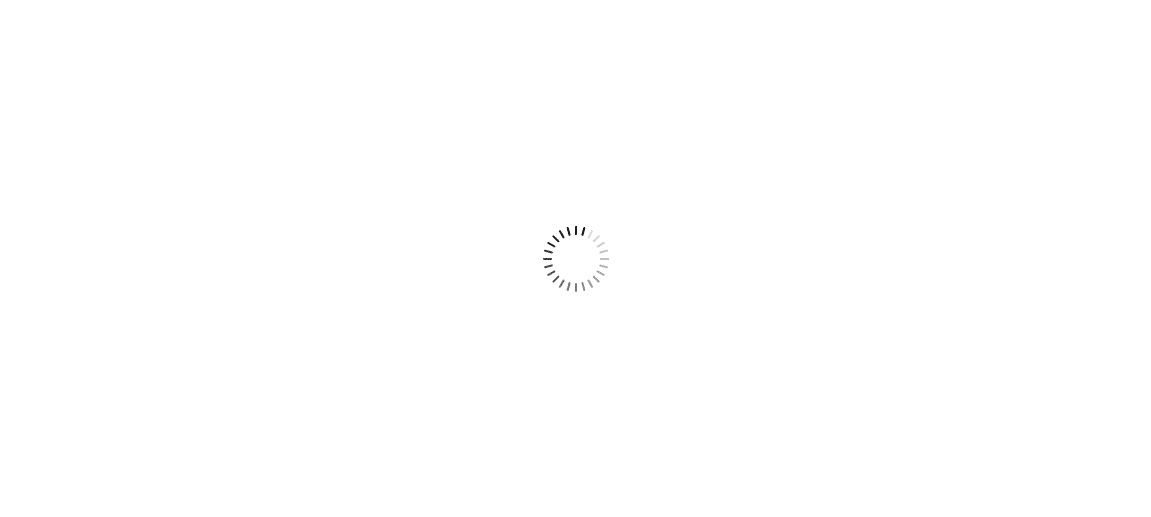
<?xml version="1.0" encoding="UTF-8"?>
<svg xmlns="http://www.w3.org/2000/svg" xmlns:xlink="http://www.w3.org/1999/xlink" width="1151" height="517">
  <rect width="100%" height="100%" fill="#ffffff" />
  <image x="543" y="226" width="66" height="66" xlink:href="image1.png" />
</svg>
